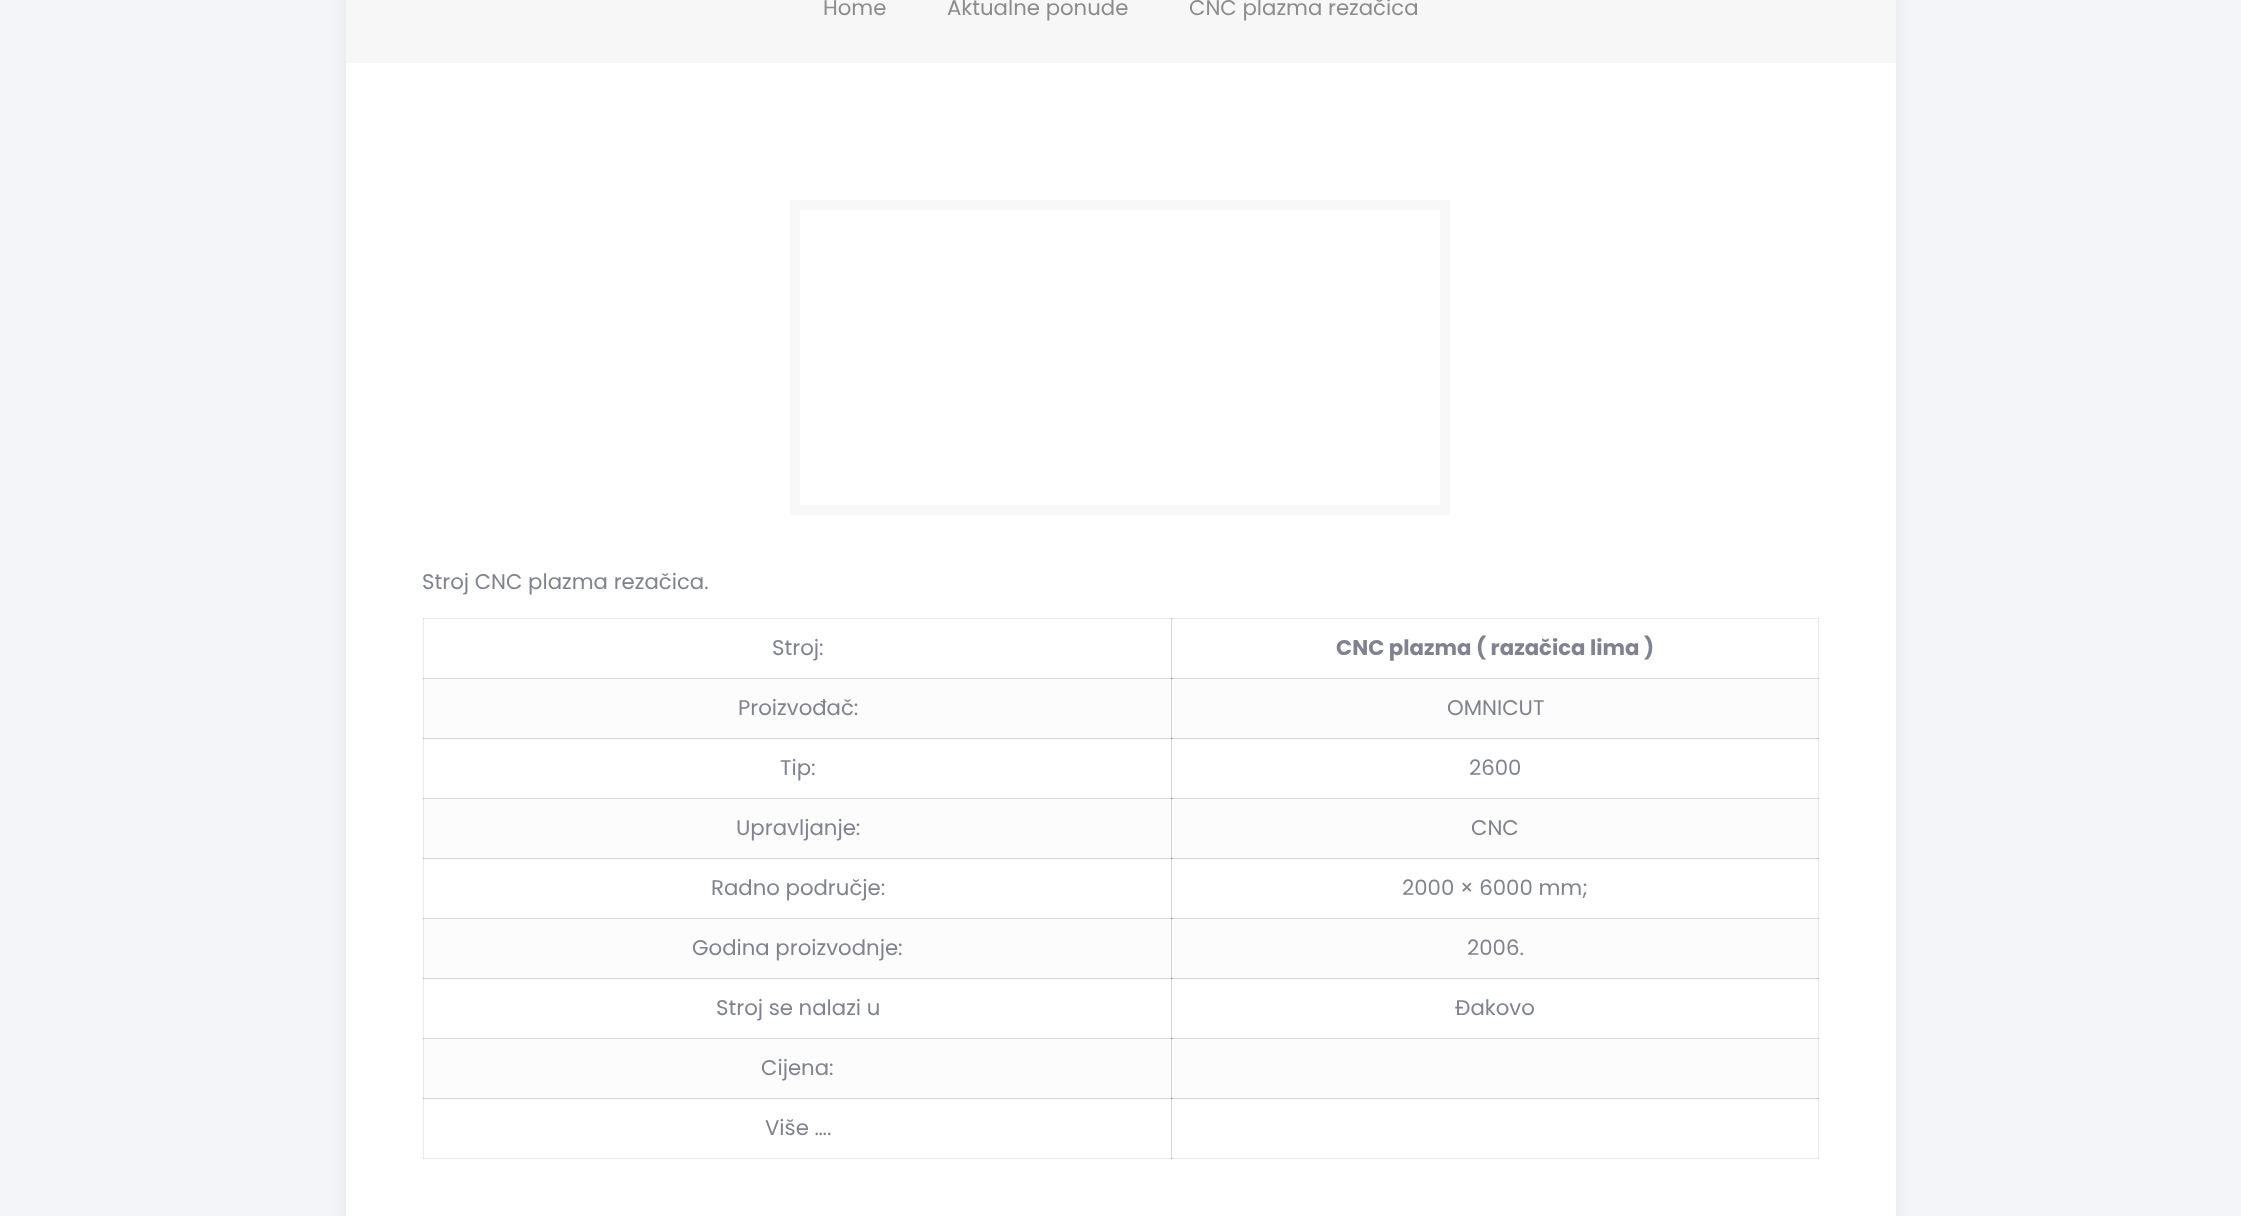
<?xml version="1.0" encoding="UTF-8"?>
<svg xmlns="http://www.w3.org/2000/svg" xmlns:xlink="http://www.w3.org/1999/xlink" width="2241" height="1216">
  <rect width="100%" height="100%" fill="#f4f5f8" />
  <rect x="346" y="-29" width="1550" height="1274" fill="#000000" fill-opacity="0.06" filter="blur(9.5px)" />
  <rect x="346" y="63" width="1550" height="1153" fill="#ffffff" />
  <rect x="423" y="618" width="1" height="61" fill="#ebebeb" />
  <rect x="423" y="618" width="750" height="1" fill="#ebebeb" />
  <rect x="423" y="618" width="1" height="1" fill="#d8d8d8" />
  <rect x="1171" y="618" width="1" height="61" fill="#d8d8d8" />
  <rect x="1818" y="618" width="1" height="61" fill="#ebebeb" />
  <rect x="423" y="678" width="1396" height="1" fill="#d8d8d8" />
  <rect x="423" y="678" width="1" height="1" fill="#b7b7b7" />
  <rect x="423" y="738" width="1" height="61" fill="#ebebeb" />
  <rect x="1171" y="738" width="1" height="61" fill="#d8d8d8" />
  <rect x="1818" y="738" width="1" height="61" fill="#ebebeb" />
  <rect x="423" y="798" width="1396" height="1" fill="#d8d8d8" />
  <rect x="423" y="798" width="1" height="1" fill="#b7b7b7" />
  <rect x="423" y="858" width="1" height="61" fill="#ebebeb" />
  <rect x="1171" y="858" width="1" height="61" fill="#d8d8d8" />
  <rect x="1818" y="858" width="1" height="61" fill="#ebebeb" />
  <rect x="423" y="918" width="1396" height="1" fill="#d8d8d8" />
  <rect x="423" y="918" width="1" height="1" fill="#b7b7b7" />
  <rect x="423" y="978" width="1" height="61" fill="#ebebeb" />
  <rect x="1171" y="978" width="1" height="61" fill="#d8d8d8" />
  <rect x="1818" y="978" width="1" height="61" fill="#ebebeb" />
  <rect x="423" y="1038" width="1396" height="1" fill="#d8d8d8" />
  <rect x="423" y="1038" width="1" height="1" fill="#b7b7b7" />
  <rect x="423" y="1098" width="1" height="61" fill="#ebebeb" />
  <rect x="423" y="1158" width="750" height="1" fill="#ebebeb" />
  <rect x="423" y="1158" width="1" height="1" fill="#d8d8d8" />
  <rect x="1171" y="1098" width="1" height="61" fill="#d8d8d8" />
  <rect x="1171" y="1158" width="648" height="1" fill="#ebebeb" />
  <rect x="1171" y="1158" width="2" height="1" fill="#d8d8d8" />
  <rect x="1171" y="1158" width="1" height="1" fill="#b7b7b7" />
  <rect x="1818" y="1098" width="1" height="61" fill="#ebebeb" />
  <rect x="1818" y="1158" width="1" height="1" fill="#d8d8d8" />
  <rect x="346" width="1550" height="63" fill="#f7f7f7" />
  <rect x="795" y="205" width="650" height="305" fill="none" stroke="#f8f8f8" stroke-width="10" />
  <rect x="1171" y="618" width="648" height="1" fill="#ebebeb" />
  <rect x="1171" y="618" width="2" height="1" fill="#d8d8d8" />
  <rect x="1171" y="618" width="1" height="1" fill="#b7b7b7" />
  <rect x="1818" y="618" width="1" height="1" fill="#d8d8d8" />
  <rect x="424" y="679" width="1394" height="59" fill="#fcfcfc" />
  <rect x="423" y="679" width="1" height="60" fill="#e8e8e8" />
  <rect x="1171" y="679" width="1" height="60" fill="#d5d5d5" />
  <rect x="423" y="738" width="750" height="1" fill="#d5d5d5" />
  <rect x="423" y="738" width="1" height="1" fill="#b4b4b4" />
  <rect x="1818" y="679" width="1" height="60" fill="#e8e8e8" />
  <rect x="1171" y="678" width="2" height="1" fill="#b7b7b7" />
  <rect x="1171" y="678" width="1" height="1" fill="#848484" />
  <rect x="1818" y="678" width="1" height="1" fill="#b7b7b7" />
  <rect x="1171" y="738" width="648" height="1" fill="#d5d5d5" />
  <rect x="1171" y="738" width="2" height="1" fill="#b4b4b4" />
  <rect x="1171" y="738" width="1" height="1" fill="#828282" />
  <rect x="1818" y="738" width="1" height="1" fill="#b4b4b4" />
  <rect x="424" y="799" width="1394" height="59" fill="#fcfcfc" />
  <rect x="423" y="799" width="1" height="60" fill="#e8e8e8" />
  <rect x="1171" y="799" width="1" height="60" fill="#d5d5d5" />
  <rect x="423" y="858" width="750" height="1" fill="#d5d5d5" />
  <rect x="423" y="858" width="1" height="1" fill="#b4b4b4" />
  <rect x="1818" y="799" width="1" height="60" fill="#e8e8e8" />
  <rect x="1171" y="798" width="2" height="1" fill="#b7b7b7" />
  <rect x="1171" y="798" width="1" height="1" fill="#848484" />
  <rect x="1818" y="798" width="1" height="1" fill="#b7b7b7" />
  <rect x="1171" y="858" width="648" height="1" fill="#d5d5d5" />
  <rect x="1171" y="858" width="2" height="1" fill="#b4b4b4" />
  <rect x="1171" y="858" width="1" height="1" fill="#828282" />
  <rect x="1818" y="858" width="1" height="1" fill="#b4b4b4" />
  <rect x="424" y="919" width="1394" height="59" fill="#fcfcfc" />
  <rect x="423" y="919" width="1" height="60" fill="#e8e8e8" />
  <rect x="1171" y="919" width="1" height="60" fill="#d5d5d5" />
  <rect x="423" y="978" width="750" height="1" fill="#d5d5d5" />
  <rect x="423" y="978" width="1" height="1" fill="#b4b4b4" />
  <rect x="1818" y="919" width="1" height="60" fill="#e8e8e8" />
  <rect x="1171" y="918" width="2" height="1" fill="#b7b7b7" />
  <rect x="1171" y="918" width="1" height="1" fill="#848484" />
  <rect x="1818" y="918" width="1" height="1" fill="#b7b7b7" />
  <rect x="1171" y="978" width="648" height="1" fill="#d5d5d5" />
  <rect x="1171" y="978" width="2" height="1" fill="#b4b4b4" />
  <rect x="1171" y="978" width="1" height="1" fill="#828282" />
  <rect x="1818" y="978" width="1" height="1" fill="#b4b4b4" />
  <rect x="424" y="1039" width="1394" height="59" fill="#fcfcfc" />
  <rect x="423" y="1039" width="1" height="60" fill="#e8e8e8" />
  <rect x="1171" y="1039" width="1" height="60" fill="#d5d5d5" />
  <rect x="423" y="1098" width="750" height="1" fill="#d5d5d5" />
  <rect x="423" y="1098" width="1" height="1" fill="#b4b4b4" />
  <rect x="1818" y="1039" width="1" height="60" fill="#e8e8e8" />
  <rect x="1171" y="1038" width="2" height="1" fill="#b7b7b7" />
  <rect x="1171" y="1038" width="1" height="1" fill="#848484" />
  <rect x="1818" y="1038" width="1" height="1" fill="#b7b7b7" />
  <rect x="1171" y="1098" width="648" height="1" fill="#d5d5d5" />
  <rect x="1171" y="1098" width="2" height="1" fill="#b4b4b4" />
  <rect x="1171" y="1098" width="1" height="1" fill="#828282" />
  <rect x="1818" y="1098" width="1" height="1" fill="#b4b4b4" />
  <text x="823" y="15" style="font-family: Poppins; font-size: 21.25px; fill: #8c8c8c">Home</text>
  <text x="947" y="15" style="font-family: Poppins; font-size: 21.25px; fill: #8c8c8c">Aktualne ponude</text>
  <text x="1189" y="15" style="font-family: Poppins; font-size: 21.25px; fill: #8c8c8c">CNC plazma rezačica</text>
  <text x="422" y="589" style="font-family: Poppins; font-size: 21.25px; fill: #80838f">Stroj CNC plazma rezačica.</text>
  <text x="772" y="655" style="font-family: Poppins; font-size: 21.25px; fill: #80838f">Stroj:</text>
  <text x="1336" y="655" style="font-family: Poppins; font-size: 21.25px; font-weight: bold; fill: #80838f">CNC plazma ( razačica lima )</text>
  <text x="738" y="715" style="font-family: Poppins; font-size: 21.25px; fill: #80838f">Proizvođač:</text>
  <text x="1447" y="715" style="font-family: Poppins; font-size: 21.25px; fill: #80838f">OMNICUT</text>
  <text x="780" y="775" style="font-family: Poppins; font-size: 21.25px; fill: #80838f">Tip:</text>
  <text x="1469" y="775" style="font-family: Poppins; font-size: 21.25px; fill: #80838f">2600</text>
  <text x="736" y="835" style="font-family: Poppins; font-size: 21.25px; fill: #80838f">Upravljanje:</text>
  <text x="1471" y="835" style="font-family: Poppins; font-size: 21.25px; fill: #80838f">CNC</text>
  <text x="711" y="895" style="font-family: Poppins; font-size: 21.25px; fill: #80838f">Radno područje:</text>
  <text x="1402" y="895" style="font-family: Poppins; font-size: 21.25px; fill: #80838f">2000 × 6000 mm;</text>
  <text x="692" y="955" style="font-family: Poppins; font-size: 21.25px; fill: #80838f">Godina proizvodnje:</text>
  <text x="1467" y="955" style="font-family: Poppins; font-size: 21.25px; fill: #80838f">2006.</text>
  <text x="716" y="1015" style="font-family: Poppins; font-size: 21.25px; fill: #80838f">Stroj se nalazi u</text>
  <text x="1455" y="1015" style="font-family: Poppins; font-size: 21.25px; fill: #80838f">Đakovo</text>
  <text x="761" y="1075" style="font-family: Poppins; font-size: 21.25px; fill: #80838f">Cijena:</text>
  <text x="765" y="1135" style="font-family: Poppins; font-size: 21.25px; fill: #80838f">Više ….</text>
</svg>
